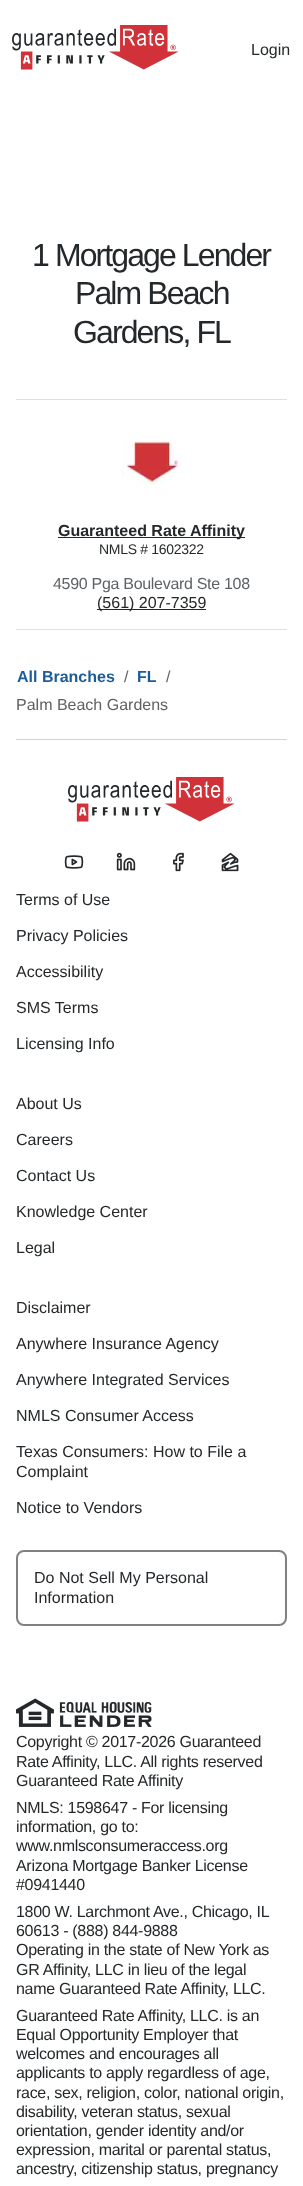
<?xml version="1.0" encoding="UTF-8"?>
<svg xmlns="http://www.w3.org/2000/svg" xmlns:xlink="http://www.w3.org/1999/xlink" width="303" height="2186">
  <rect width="100%" height="100%" fill="#ffffff" />
  <image x="12" y="25" width="167" height="45" xlink:href="image1.png" />
  <rect x="16" y="399" width="271" height="1" fill="#dedfe0" />
  <rect x="16" y="629" width="271" height="1" fill="#dedfe0" />
  <image x="122" y="440" width="60" height="48" xlink:href="image2.png" />
  <rect x="58" y="537" width="187" height="1" fill="#25282a" />
  <rect x="97" y="609" width="109" height="1" fill="#25282a" />
  <rect x="16" y="739" width="271" height="1" fill="#d3d3d3" />
  <image x="68" y="777" width="167" height="45" xlink:href="image3.png" />
  <image x="64" y="855" width="20" height="14" xlink:href="image4.png" />
  <image x="116" y="852" width="20" height="19" xlink:href="image5.png" />
  <image x="173" y="852" width="11" height="20" xlink:href="image6.png" />
  <image x="221" y="852" width="18" height="20" xlink:href="image7.png" />
  <rect x="17" y="1551" width="269" height="74" rx="7" fill="none" stroke="#808080" stroke-width="2" />
  <image x="16" y="1698" width="136" height="29" xlink:href="image8.png" />
  <text x="251" y="55" style="font-family: Liberation Sans; font-size: 16px; fill: #25282a">Login</text>
  <text x="32" y="266" style="font-family: Liberation Sans; font-size: 32px; letter-spacing: -1.9px; fill: #25282a">1 Mortgage Lender</text>
  <text x="75" y="304" style="font-family: Liberation Sans; font-size: 32px; letter-spacing: -1.9px; fill: #25282a">Palm Beach</text>
  <text x="73" y="343" style="font-family: Liberation Sans; font-size: 32px; letter-spacing: -1.9px; fill: #25282a">Gardens, FL</text>
  <text x="58" y="536" style="font-family: Liberation Sans; font-size: 16px; font-weight: bold; fill: #25282a">Guaranteed Rate Affinity</text>
  <text x="99" y="554" style="font-family: Liberation Sans; font-size: 14px; letter-spacing: -0.3px; fill: #25282a">NMLS # 1602322</text>
  <text x="53" y="589" style="font-family: Liberation Sans; font-size: 16px; letter-spacing: -0.3px; fill: #5e6265">4590 Pga Boulevard Ste 108</text>
  <text x="97" y="608" style="font-family: Liberation Sans; font-size: 16px; fill: #25282a">(561) 207-7359</text>
  <text x="17" y="682" style="font-family: Liberation Sans; font-size: 16px; font-weight: bold; fill: #1c5d99">All Branches</text>
  <text x="124" y="682" style="font-family: Liberation Sans; font-size: 16px; fill: #5e6265">/</text>
  <text x="137" y="682" style="font-family: Liberation Sans; font-size: 16px; font-weight: bold; fill: #1c5d99">FL</text>
  <text x="166" y="682" style="font-family: Liberation Sans; font-size: 16px; fill: #5e6265">/</text>
  <text x="16" y="710" style="font-family: Liberation Sans; font-size: 16px; fill: #5e6265">Palm Beach Gardens</text>
  <text x="16" y="905" style="font-family: Liberation Sans; font-size: 16px; fill: #25282a">Terms of Use</text>
  <text x="16" y="941" style="font-family: Liberation Sans; font-size: 16px; fill: #25282a">Privacy Policies</text>
  <text x="16" y="977" style="font-family: Liberation Sans; font-size: 16px; fill: #25282a">Accessibility</text>
  <text x="16" y="1013" style="font-family: Liberation Sans; font-size: 16px; fill: #25282a">SMS Terms</text>
  <text x="16" y="1049" style="font-family: Liberation Sans; font-size: 16px; fill: #25282a">Licensing Info</text>
  <text x="16" y="1109" style="font-family: Liberation Sans; font-size: 16px; fill: #25282a">About Us</text>
  <text x="16" y="1145" style="font-family: Liberation Sans; font-size: 16px; fill: #25282a">Careers</text>
  <text x="16" y="1181" style="font-family: Liberation Sans; font-size: 16px; fill: #25282a">Contact Us</text>
  <text x="16" y="1217" style="font-family: Liberation Sans; font-size: 16px; fill: #25282a">Knowledge Center</text>
  <text x="16" y="1253" style="font-family: Liberation Sans; font-size: 16px; fill: #25282a">Legal</text>
  <text x="16" y="1313" style="font-family: Liberation Sans; font-size: 16px; fill: #25282a">Disclaimer</text>
  <text x="16" y="1349" style="font-family: Liberation Sans; font-size: 16px; fill: #25282a">Anywhere Insurance Agency</text>
  <text x="16" y="1385" style="font-family: Liberation Sans; font-size: 16px; fill: #25282a">Anywhere Integrated Services</text>
  <text x="16" y="1421" style="font-family: Liberation Sans; font-size: 16px; fill: #25282a">NMLS Consumer Access</text>
  <text x="16" y="1457" style="font-family: Liberation Sans; font-size: 16px; fill: #25282a">Texas Consumers: How to File a</text>
  <text x="16" y="1477" style="font-family: Liberation Sans; font-size: 16px; fill: #25282a">Complaint</text>
  <text x="16" y="1513" style="font-family: Liberation Sans; font-size: 16px; fill: #25282a">Notice to Vendors</text>
  <text x="34" y="1583" style="font-family: Liberation Sans; font-size: 16px; fill: #25282a">Do Not Sell My Personal</text>
  <text x="34" y="1603" style="font-family: Liberation Sans; font-size: 16px; fill: #25282a">Information</text>
  <text x="16" y="1747" style="font-family: Liberation Sans; font-size: 16px; letter-spacing: -0.3px; fill: #25282a">Copyright © 2017-2026 Guaranteed</text>
  <text x="16" y="1767" style="font-family: Liberation Sans; font-size: 16px; letter-spacing: -0.3px; fill: #25282a">Rate Affinity, LLC. All rights reserved</text>
  <text x="16" y="1786" style="font-family: Liberation Sans; font-size: 16px; letter-spacing: -0.3px; fill: #25282a">Guaranteed Rate Affinity</text>
  <text x="16" y="1813" style="font-family: Liberation Sans; font-size: 16px; letter-spacing: -0.3px; fill: #25282a">NMLS: 1598647 - For licensing</text>
  <text x="16" y="1832" style="font-family: Liberation Sans; font-size: 16px; letter-spacing: -0.3px; fill: #25282a">information, go to:</text>
  <text x="16" y="1851" style="font-family: Liberation Sans; font-size: 16px; letter-spacing: -0.3px; fill: #25282a">www.nmlsconsumeraccess.org</text>
  <text x="16" y="1871" style="font-family: Liberation Sans; font-size: 16px; letter-spacing: -0.3px; fill: #25282a">Arizona Mortgage Banker License</text>
  <text x="16" y="1890" style="font-family: Liberation Sans; font-size: 16px; letter-spacing: -0.3px; fill: #25282a">#0941440</text>
  <text x="16" y="1917" style="font-family: Liberation Sans; font-size: 16px; letter-spacing: -0.3px; fill: #25282a">1800 W. Larchmont Ave., Chicago, IL</text>
  <text x="16" y="1936" style="font-family: Liberation Sans; font-size: 16px; letter-spacing: -0.3px; fill: #25282a">60613 - (888) 844-9888</text>
  <text x="16" y="1955" style="font-family: Liberation Sans; font-size: 16px; letter-spacing: -0.3px; fill: #25282a">Operating in the state of New York as</text>
  <text x="16" y="1975" style="font-family: Liberation Sans; font-size: 16px; letter-spacing: -0.3px; fill: #25282a">GR Affinity, LLC in lieu of the legal</text>
  <text x="16" y="1994" style="font-family: Liberation Sans; font-size: 16px; letter-spacing: -0.3px; fill: #25282a">name Guaranteed Rate Affinity, LLC.</text>
  <text x="16" y="2021" style="font-family: Liberation Sans; font-size: 16px; letter-spacing: -0.3px; fill: #25282a">Guaranteed Rate Affinity, LLC. is an</text>
  <text x="16" y="2040" style="font-family: Liberation Sans; font-size: 16px; letter-spacing: -0.3px; fill: #25282a">Equal Opportunity Employer that</text>
  <text x="16" y="2059" style="font-family: Liberation Sans; font-size: 16px; letter-spacing: -0.3px; fill: #25282a">welcomes and encourages all</text>
  <text x="16" y="2078" style="font-family: Liberation Sans; font-size: 16px; letter-spacing: -0.3px; fill: #25282a">applicants to apply regardless of age,</text>
  <text x="16" y="2098" style="font-family: Liberation Sans; font-size: 16px; letter-spacing: -0.3px; fill: #25282a">race, sex, religion, color, national origin,</text>
  <text x="16" y="2117" style="font-family: Liberation Sans; font-size: 16px; letter-spacing: -0.3px; fill: #25282a">disability, veteran status, sexual</text>
  <text x="16" y="2136" style="font-family: Liberation Sans; font-size: 16px; letter-spacing: -0.3px; fill: #25282a">orientation, gender identity and/or</text>
  <text x="16" y="2155" style="font-family: Liberation Sans; font-size: 16px; letter-spacing: -0.3px; fill: #25282a">expression, marital or parental status,</text>
  <text x="16" y="2174" style="font-family: Liberation Sans; font-size: 16px; letter-spacing: -0.3px; fill: #25282a">ancestry, citizenship status, pregnancy</text>
</svg>
